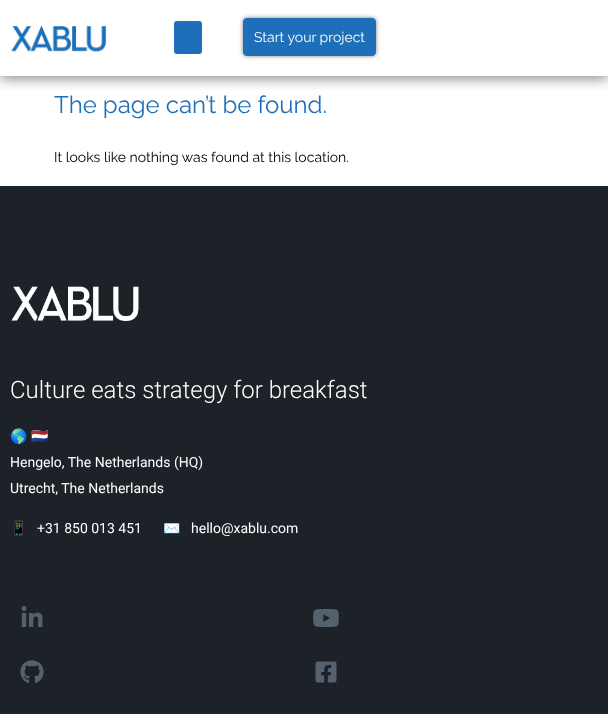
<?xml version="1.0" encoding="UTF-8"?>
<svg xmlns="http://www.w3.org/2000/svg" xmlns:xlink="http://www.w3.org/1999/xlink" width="608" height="714">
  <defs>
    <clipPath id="clip1"><rect x="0" y="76" width="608" height="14" /></clipPath>
  </defs>
  <rect width="100%" height="100%" fill="#ffffff" />
  <g clip-path="url(#clip1)">
    <rect y="2" width="608" height="76" fill="#000000" fill-opacity="0.5" filter="blur(7px)" />
  </g>
  <image x="11" y="25" width="96" height="27" xlink:href="image1.png" />
  <rect x="174" y="21" width="28" height="33" rx="3" fill="#1c6fb8" />
  <rect x="243" y="18" width="133" height="38" rx="4" fill="#000000" fill-opacity="0.5" filter="blur(2px)" />
  <rect x="243.5" y="18.5" width="132" height="37" rx="3.5" fill="#1c6fb8" stroke="#1c6fb8" />
  <rect y="186" width="608" height="528" fill="#1c2227" />
  <image x="11" y="286" width="128" height="35" xlink:href="image2.png" />
  <image x="21" y="606" width="22" height="21" xlink:href="image3.png" />
  <image x="313" y="609" width="26" height="18" xlink:href="image4.png" />
  <image x="20" y="660" width="24" height="23" xlink:href="image5.png" />
  <image x="315" y="661" width="22" height="22" xlink:href="image6.png" />
  <text x="254" y="42" style="font-family: Raleway; font-size: 14px; fill: #ffffff">Start your project</text>
  <text x="54" y="113" style="font-family: Raleway; font-size: 24px; fill: #1c6fb8">The page can’t be found.</text>
  <text x="54" y="162" style="font-family: Raleway; font-size: 14px; fill: #000000">It looks like nothing was found at this location.</text>
  <text x="10" y="398" style="font-family: Roboto; font-size: 24px; font-weight: 300; fill: #ffffff">Culture eats strategy for breakfast</text>
  <text x="10" y="441" style="font-family: Noto Color Emoji; font-size: 14px; fill: #ffffff">🌎</text>
  <text x="31" y="441" style="font-family: Noto Color Emoji; font-size: 14px; fill: #ffffff">🇳🇱</text>
  <text x="10" y="467" style="font-family: Roboto; font-size: 14px; fill: #ffffff">Hengelo, The Netherlands (HQ)</text>
  <text x="10" y="493" style="font-family: Roboto; font-size: 14px; fill: #ffffff">Utrecht, The Netherlands</text>
  <text x="10" y="533" style="font-family: Noto Color Emoji; font-size: 14px; fill: #ffffff">📱</text>
  <text x="37" y="533" style="font-family: Roboto; font-size: 14px; fill: #ffffff">+31 850 013 451</text>
  <text x="163" y="533" style="font-family: Noto Color Emoji; font-size: 14px; fill: #ffffff">✉️</text>
  <text x="191" y="533" style="font-family: Roboto; font-size: 14px; fill: #ffffff">hello@xablu.com</text>
</svg>
